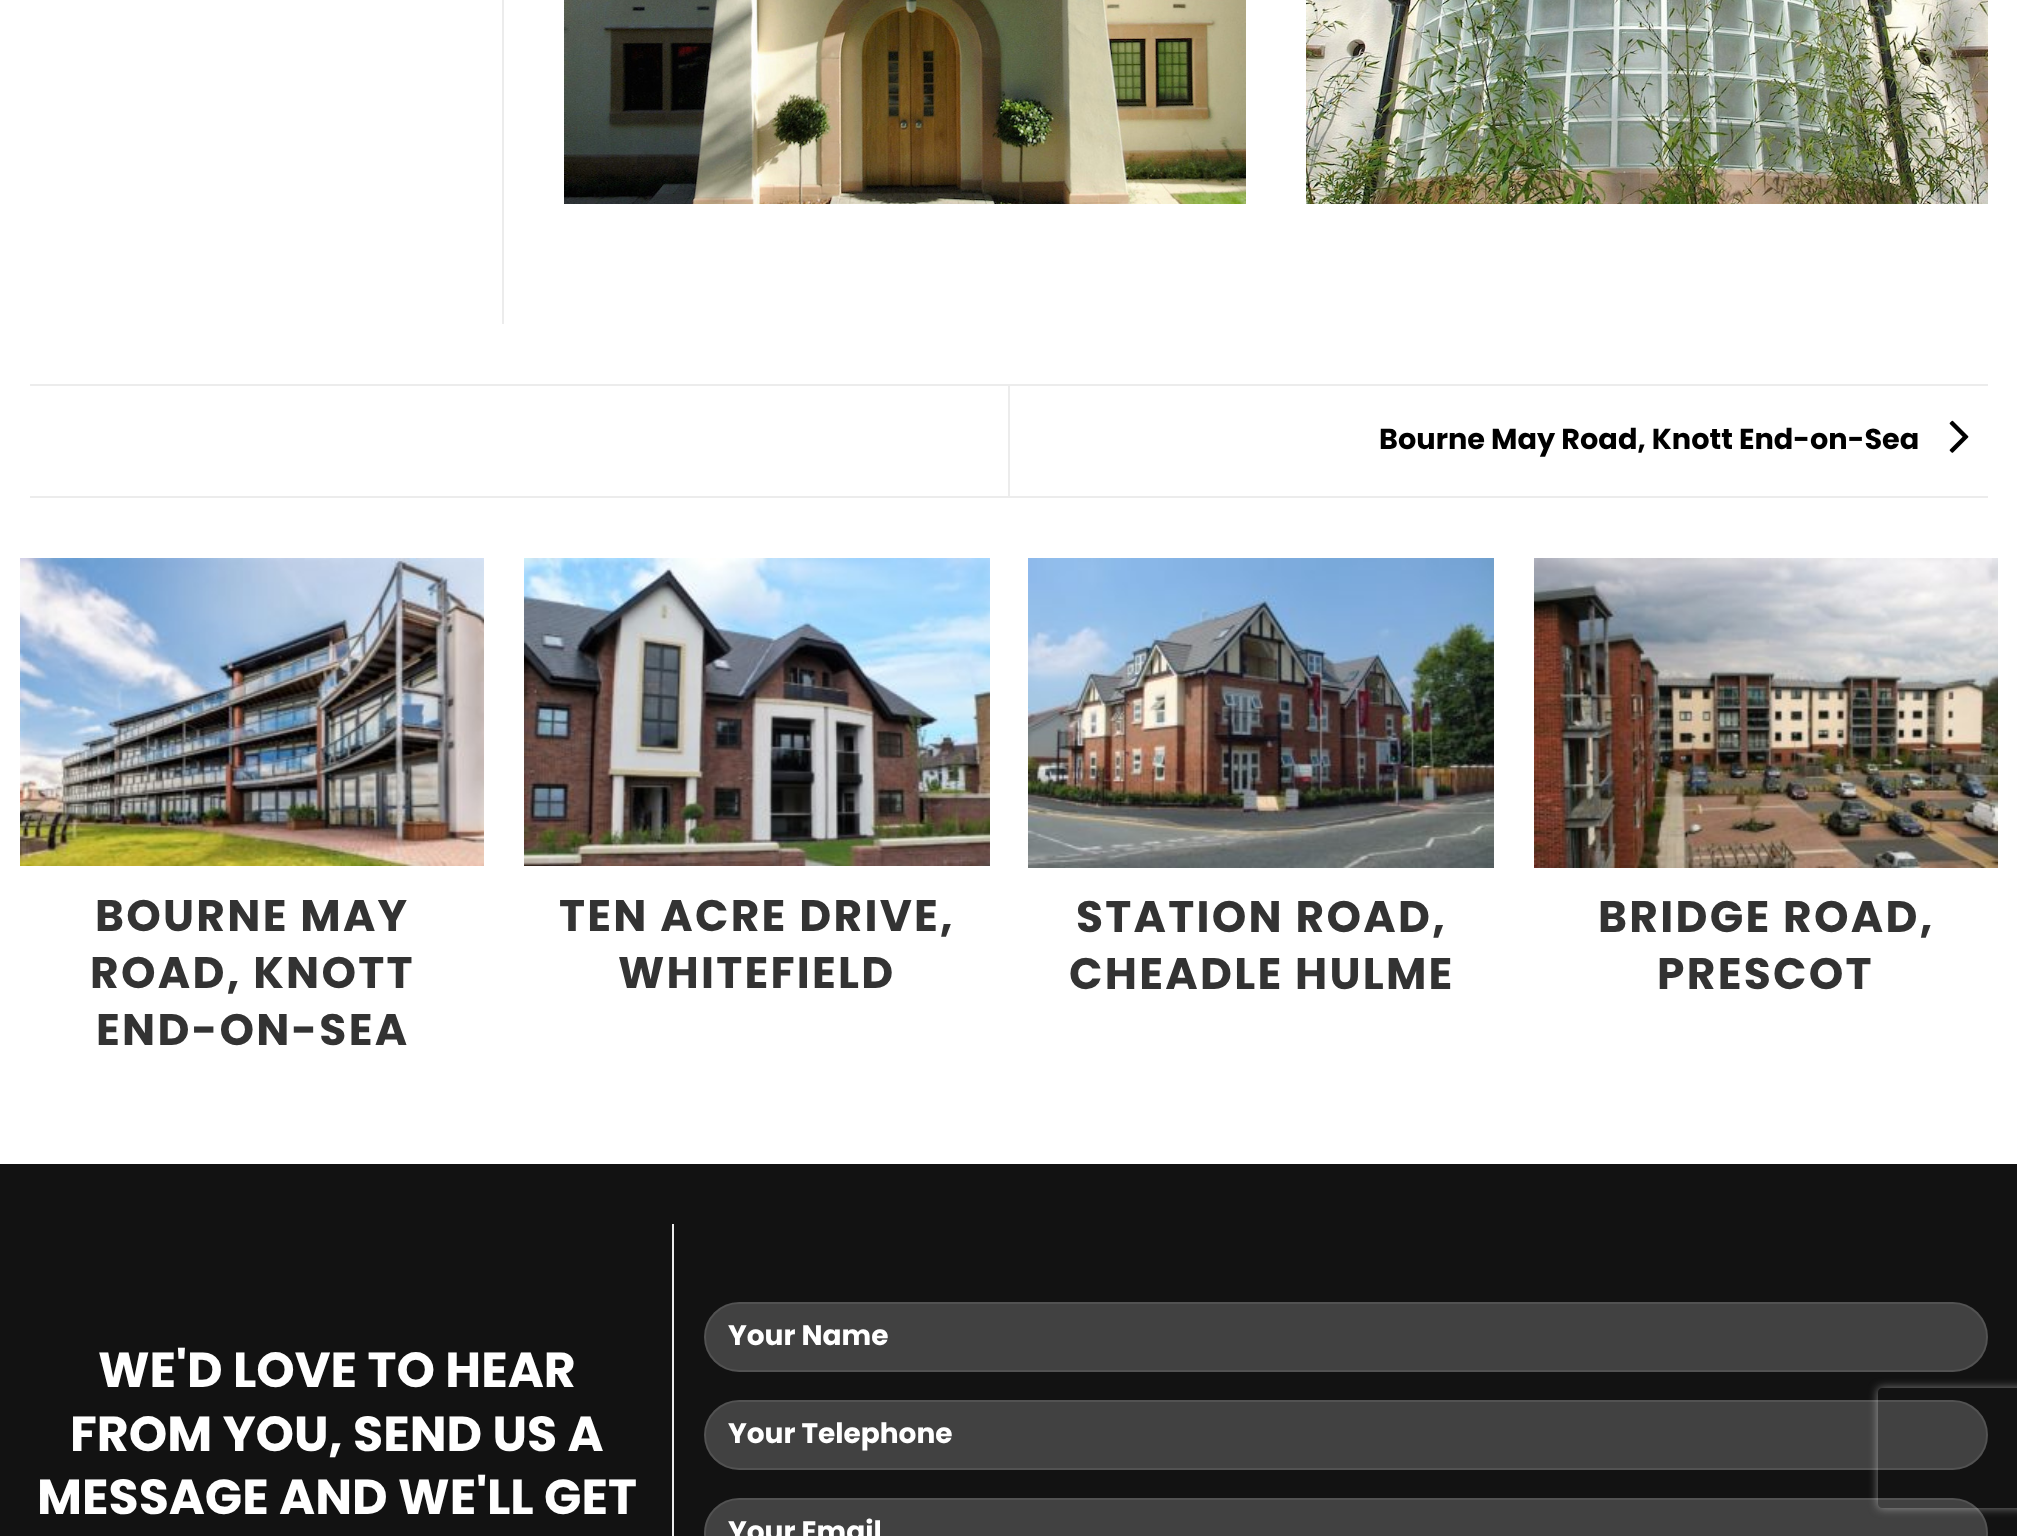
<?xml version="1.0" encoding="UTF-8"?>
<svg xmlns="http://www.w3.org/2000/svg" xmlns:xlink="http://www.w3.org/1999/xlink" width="2017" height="1536">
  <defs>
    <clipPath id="clip1"><path d="M 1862 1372 h 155 v 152 h -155 z m 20 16 h 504 c 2 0 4 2 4 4 v 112 c 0 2 -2 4 -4 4 h -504 c -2 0 -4 -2 -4 -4 v -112 c 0 -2 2 -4 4 -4 z" clip-rule="evenodd" /></clipPath>
  </defs>
  <rect width="100%" height="100%" fill="#ffffff" />
  <rect x="502" width="2" height="324" fill="#ececec" />
  <image x="564" y="0" width="682" height="204" xlink:href="image1.png" />
  <image x="1306" y="0" width="682" height="204" xlink:href="image2.png" />
  <rect x="30" y="384" width="1958" height="2" fill="#ececec" />
  <rect x="30" y="496" width="1958" height="2" fill="#ececec" />
  <rect x="1008" y="386" width="2" height="110" fill="#ececec" />
  <image x="1949" y="420" width="20" height="33" xlink:href="image3.png" />
  <image x="20" y="558" width="464" height="308" xlink:href="image4.png" />
  <image x="524" y="558" width="466" height="308" xlink:href="image5.png" />
  <image x="1028" y="558" width="466" height="310" xlink:href="image6.png" />
  <image x="1534" y="558" width="464" height="310" xlink:href="image7.png" />
  <rect y="1164" width="2017" height="372" fill="#121212" />
  <rect x="672" y="1224" width="2" height="312" fill="#ececec" />
  <rect x="704" y="1302" width="1284" height="70" rx="35" fill="#414141" />
  <rect x="705" y="1303" width="1282" height="68" rx="34" fill="none" stroke="#ffffff" stroke-opacity="0.09" stroke-width="2" />
  <g clip-path="url(#clip1)">
    <rect x="1878" y="1388" width="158" height="120" rx="4" fill="#808080" filter="blur(5px)" />
  </g>
  <rect x="704" y="1400" width="1284" height="70" rx="35" fill="#ffffff" fill-opacity="0.2" />
  <rect x="705" y="1401" width="1282" height="68" rx="34" fill="none" stroke="#ffffff" stroke-opacity="0.09" stroke-width="2" />
  <rect x="704" y="1498" width="1284" height="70" rx="35" fill="#ffffff" fill-opacity="0.2" />
  <rect x="705" y="1499" width="1282" height="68" rx="34" fill="none" stroke="#ffffff" stroke-opacity="0.09" stroke-width="2" />
  <text x="1379" y="449" style="font-family: Poppins; font-size: 28.75px; font-weight: bold; fill: #000000">Bourne May Road, Knott End-on-Sea</text>
  <text x="95" y="931" style="font-family: Poppins; font-size: 44px; font-weight: bold; letter-spacing: 2.25px; fill: #333333">BOURNE MAY</text>
  <text x="90" y="988" style="font-family: Poppins; font-size: 44px; font-weight: bold; letter-spacing: 2.25px; fill: #333333">ROAD, KNOTT</text>
  <text x="96" y="1045" style="font-family: Poppins; font-size: 44px; font-weight: bold; letter-spacing: 2.25px; fill: #333333">END-ON-SEA</text>
  <text x="559" y="931" style="font-family: Poppins; font-size: 44px; font-weight: bold; letter-spacing: 2.25px; fill: #333333">TEN ACRE DRIVE,</text>
  <text x="618" y="988" style="font-family: Poppins; font-size: 44px; font-weight: bold; letter-spacing: 2.25px; fill: #333333">WHITEFIELD</text>
  <text x="1076" y="932" style="font-family: Poppins; font-size: 44px; font-weight: bold; letter-spacing: 2.25px; fill: #333333">STATION ROAD,</text>
  <text x="1069" y="989" style="font-family: Poppins; font-size: 44px; font-weight: bold; letter-spacing: 2.25px; fill: #333333">CHEADLE HULME</text>
  <text x="1598" y="932" style="font-family: Poppins; font-size: 44px; font-weight: bold; letter-spacing: 2.25px; fill: #333333">BRIDGE ROAD,</text>
  <text x="1657" y="989" style="font-family: Poppins; font-size: 44px; font-weight: bold; letter-spacing: 2.25px; fill: #333333">PRESCOT</text>
  <text x="98" y="1387" style="font-family: Poppins; font-size: 49px; font-weight: bold; fill: #ffffff">WE'D LOVE TO HEAR</text>
  <text x="70" y="1451" style="font-family: Poppins; font-size: 49px; font-weight: bold; fill: #ffffff">FROM YOU, SEND US A</text>
  <text x="37" y="1514" style="font-family: Poppins; font-size: 49px; font-weight: bold; fill: #ffffff">MESSAGE AND WE'LL GET</text>
  <text x="728" y="1345" style="font-family: Poppins; font-size: 28px; font-weight: bold; fill: #ffffff">Your Name</text>
  <text x="728" y="1443" style="font-family: Poppins; font-size: 28px; font-weight: bold; fill: #ffffff">Your Telephone</text>
  <text x="728" y="1541" style="font-family: Poppins; font-size: 28px; font-weight: bold; fill: #ffffff">Your Email</text>
</svg>
